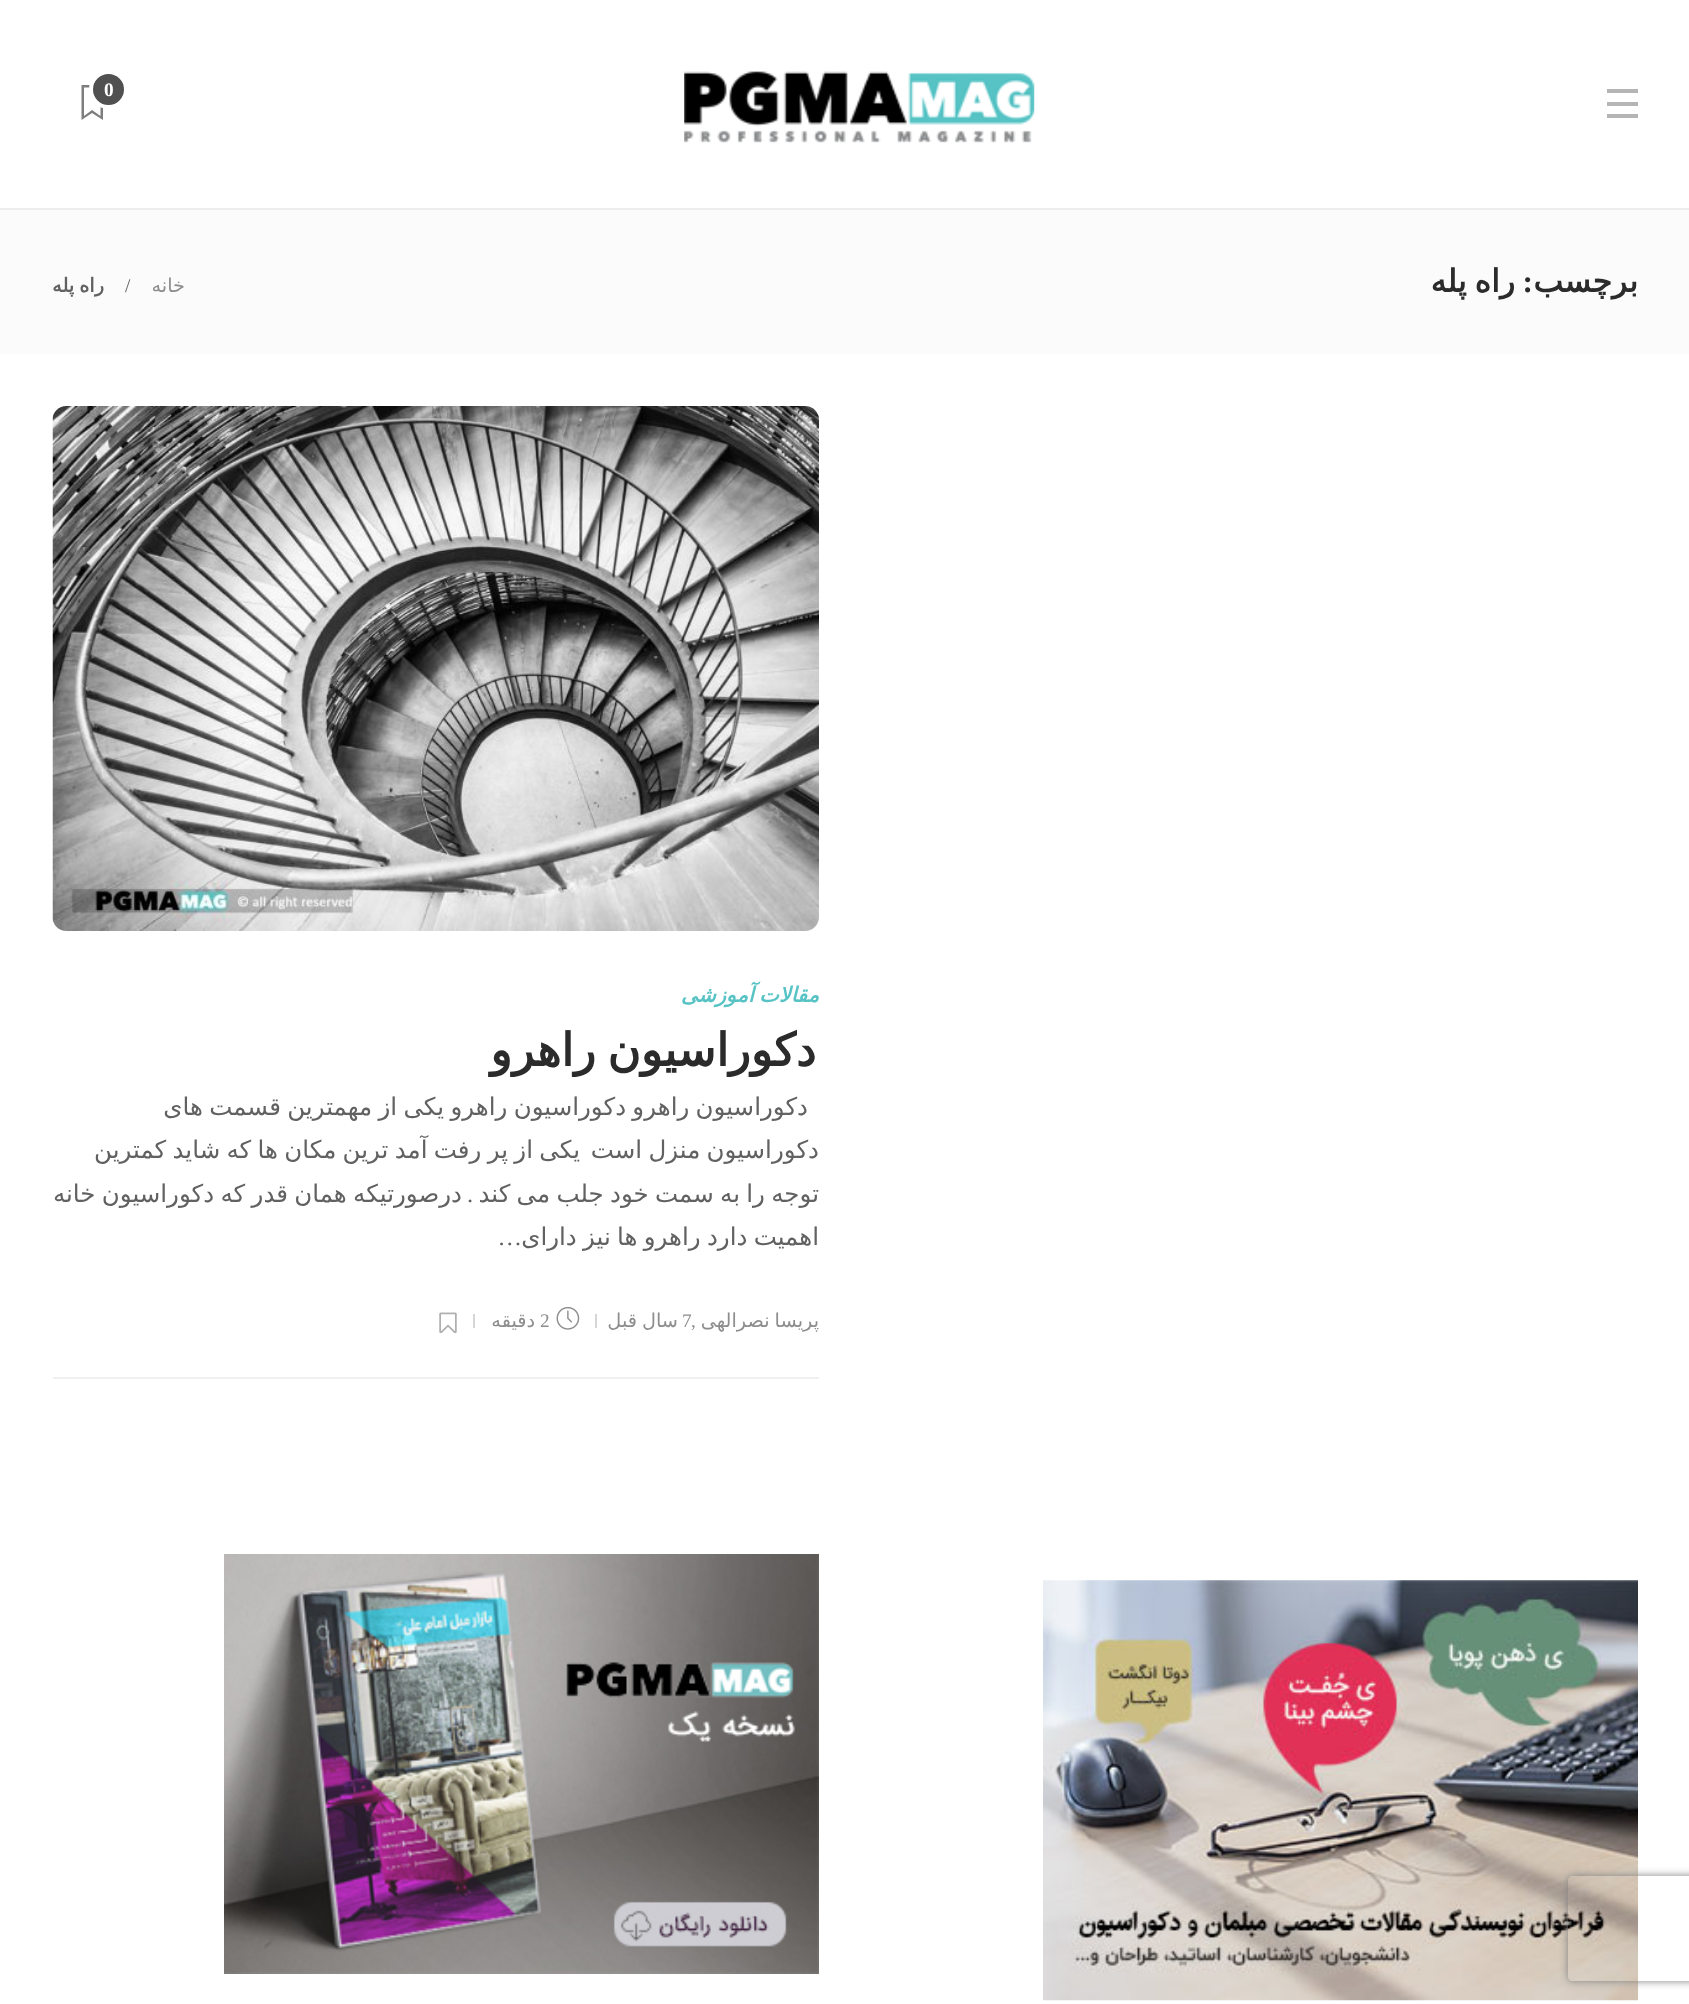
<?xml version="1.0" encoding="UTF-8"?>
<svg xmlns="http://www.w3.org/2000/svg" xmlns:xlink="http://www.w3.org/1999/xlink" width="1689" height="2004">
  <defs>
    <clipPath id="clip1"><path d="M 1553 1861 h 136 v 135 h -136 z m 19 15 h 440 c 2 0 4 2 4 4 v 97 c 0 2 -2 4 -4 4 h -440 c -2 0 -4 -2 -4 -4 v -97 c 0 -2 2 -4 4 -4 z" clip-rule="evenodd" /></clipPath>
  </defs>
  <rect width="100%" height="100%" fill="#ffffff" />
  <rect y="208" width="1689" height="2" fill="#ededed" />
  <rect x="1607" y="89" width="31" height="4" fill="#b5b5b5" />
  <rect x="1607" y="102" width="31" height="4" fill="#b5b5b5" />
  <rect x="1607" y="114" width="31" height="4" fill="#b5b5b5" />
  <image x="684" y="71" width="351" height="72" xlink:href="image1.png" />
  <path d="M 81.5 85 v 35 l 10.5 -7 l 11 7 v -35 z m 19 31 l -8.5 -6 l -8 6 v -28.5 h 16.5 z" fill="#7e7e7e" />
  <circle cx="108.5" cy="89.5" r="17.5" fill="#505050" stroke="#ffffff" stroke-width="4" />
  <rect y="210" width="1689" height="144" fill="#fbfbfb" />
  <rect x="53" y="1377" width="766" height="2" fill="#f0f0f0" />
  <image x="52" y="406" width="767" height="525" xlink:href="image2.png" />
  <rect x="595" y="1314" width="2" height="14" fill="#d6d6d6" />
  <image x="556" y="1306" width="24" height="24" xlink:href="image3.png" />
  <rect x="473" y="1314" width="2" height="14" fill="#d6d6d6" />
  <image x="439" y="1312" width="18" height="22" xlink:href="image4.png" />
  <image x="1043" y="1580" width="595" height="421" xlink:href="image5.png" />
  <image x="224" y="1554" width="595" height="420" xlink:href="image6.png" />
  <g clip-path="url(#clip1)">
    <rect x="1568" y="1876" width="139" height="105" rx="4" fill="#808080" filter="blur(4.5px)" />
  </g>
  <text x="104" y="96" style="font-family: Liberation Serif; font-size: 19.25px; font-weight: bold; fill: #ffffff">0</text>
  <text x="1638" y="292" style="font-family: DejaVu Sans; font-size: 31.5px; font-weight: bold; direction: rtl; fill: #2b2b2b">برچسب</text>
  <text x="1533" y="292" style="font-family: Liberation Serif; font-size: 31.5px; font-weight: bold; direction: rtl; fill: #2b2b2b">:</text>
  <text x="1515" y="292" word-spacing="-2" style="font-family: DejaVu Sans; font-size: 31.5px; font-weight: bold; direction: rtl; fill: #2b2b2b">راه پله</text>
  <text x="185" y="292" style="font-family: DejaVu Sans; font-size: 19.25px; direction: rtl; fill: #8d8d8d">خانه</text>
  <text x="125" y="292" style="font-family: Liberation Serif; font-size: 19.25px; fill: #616161">/</text>
  <text x="104" y="292" word-spacing="-1" style="font-family: DejaVu Sans; font-size: 19.25px; font-weight: bold; direction: rtl; fill: #616161">راه پله</text>
  <text x="819" y="1002" word-spacing="-1.5" style="font-family: DejaVu Sans; font-size: 21px; font-weight: bold; font-style: italic; direction: rtl; fill: #57c3c5">مقالات آموزشی</text>
  <text x="816" y="1066" word-spacing="-3" style="font-family: DejaVu Sans; font-size: 45.5px; font-weight: bold; direction: rtl; fill: #2b2b2b">دکوراسیون راهرو</text>
  <text x="808" y="1115" word-spacing="-1.5" style="font-family: DejaVu Sans; font-size: 24.5px; direction: rtl; fill: #616161">دکوراسیون راهرو دکوراسیون راهرو یکی از مهمترین قسمت های</text>
  <text x="819" y="1158" word-spacing="-1.5" style="font-family: DejaVu Sans; font-size: 24.5px; direction: rtl; fill: #616161">دکوراسیون منزل است</text>
  <text x="580" y="1158" word-spacing="-1.5" style="font-family: DejaVu Sans; font-size: 24.5px; direction: rtl; fill: #616161">یکی از پر رفت آمد ترین مکان ها که شاید کمترین</text>
  <text x="819" y="1202" word-spacing="-1.5" style="font-family: DejaVu Sans; font-size: 24.5px; direction: rtl; fill: #616161">توجه را به سمت خود جلب می کند</text>
  <text x="462" y="1202" word-spacing="-1.5" style="font-family: DejaVu Sans; font-size: 24.5px; direction: rtl; fill: #616161">درصورتیکه همان قدر که دکوراسیون خانه</text>
  <text x="473" y="1202" style="font-family: Liberation Serif; font-size: 24.5px; direction: rtl; fill: #616161">.</text>
  <text x="819" y="1245" word-spacing="-1.5" style="font-family: DejaVu Sans; font-size: 24.5px; direction: rtl; fill: #616161">اهمیت دارد راهرو ها نیز دارای</text>
  <text x="522" y="1245" style="font-family: Liberation Serif; font-size: 24.5px; direction: rtl; fill: #616161">…</text>
  <text x="819" y="1327" word-spacing="-1" style="font-family: DejaVu Sans; font-size: 19.25px; direction: rtl; fill: #8d8d8d">پریسا نصرالهی</text>
  <text x="682" y="1327" style="font-family: Liberation Serif; font-size: 19.25px; fill: #8d8d8d">7</text>
  <text x="678" y="1327" word-spacing="-1" style="font-family: DejaVu Sans; font-size: 19.25px; direction: rtl; fill: #8d8d8d">سال قبل</text>
  <text x="691" y="1327" style="font-family: Liberation Serif; font-size: 19.25px; fill: #8d8d8d">,</text>
  <text x="540" y="1327" style="font-family: Liberation Serif; font-size: 19.25px; fill: #8d8d8d">2</text>
  <text x="535" y="1327" style="font-family: DejaVu Sans; font-size: 19.25px; direction: rtl; fill: #8d8d8d">دقیقه</text>
</svg>
